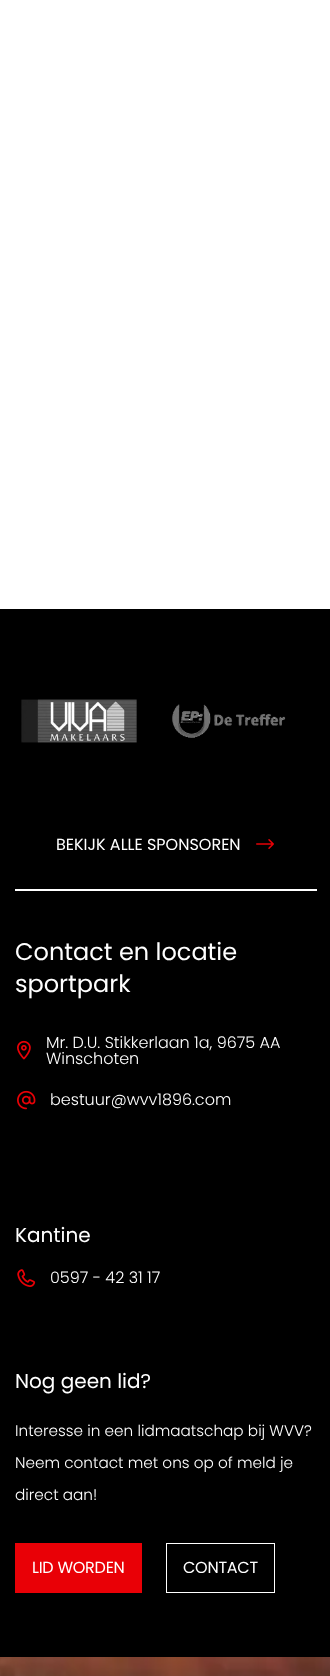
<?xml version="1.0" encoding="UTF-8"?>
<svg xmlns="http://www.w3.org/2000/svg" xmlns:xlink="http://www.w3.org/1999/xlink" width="330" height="1676">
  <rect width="100%" height="100%" fill="#ffffff" />
  <rect y="609" width="330" height="1048" fill="#000000" />
  <image x="21" y="699" width="116" height="44" xlink:href="image1.png" />
  <image x="172" y="704" width="114" height="34" xlink:href="image2.png" />
  <image x="256" y="839" width="18" height="10" xlink:href="image3.png" />
  <rect x="15" y="889" width="302" height="2" fill="#ffffff" />
  <image x="17" y="1040" width="14" height="20" xlink:href="image4.png" />
  <image x="17" y="1090" width="19" height="20" xlink:href="image5.png" />
  <image x="17" y="1269" width="19" height="18" xlink:href="image6.png" />
  <rect x="15" y="1543" width="127" height="50" fill="#e90006" />
  <rect x="166.5" y="1543.5" width="108" height="49" fill="none" stroke="#ffffff" />
  <image x="0" y="1657" width="330" height="19" xlink:href="image7.png" />
  <text x="56" y="850" style="font-family: Poppins; font-size: 16px; fill: #ffffff">BEKIJK ALLE SPONSOREN</text>
  <text x="15" y="960" style="font-family: Poppins; font-size: 24px; fill: #ffffff">Contact en locatie</text>
  <text x="15" y="992" style="font-family: Poppins; font-size: 24px; fill: #ffffff">sportpark</text>
  <text x="46" y="1048" style="font-family: Poppins; font-size: 16px; font-weight: 300; fill: #ffffff">Mr. D.U. Stikkerlaan 1a, 9675 AA</text>
  <text x="46" y="1064" style="font-family: Poppins; font-size: 16px; font-weight: 300; fill: #ffffff">Winschoten</text>
  <text x="50" y="1105" style="font-family: Poppins; font-size: 16px; font-weight: 300; fill: #ffffff">bestuur@wvv1896.com</text>
  <text x="15" y="1242" style="font-family: Poppins; font-size: 20px; fill: #ffffff">Kantine</text>
  <text x="50" y="1283" style="font-family: Poppins; font-size: 16px; font-weight: 300; fill: #ffffff">0597 - 42 31 17</text>
  <text x="15" y="1388" style="font-family: Poppins; font-size: 20px; fill: #ffffff">Nog geen lid?</text>
  <text x="15" y="1436" style="font-family: Poppins; font-size: 15.25px; font-weight: 300; fill: #ffffff">Interesse in een lidmaatschap bij WVV?</text>
  <text x="15" y="1468" style="font-family: Poppins; font-size: 15.25px; font-weight: 300; fill: #ffffff">Neem contact met ons op of meld je</text>
  <text x="15" y="1500" style="font-family: Poppins; font-size: 15.25px; font-weight: 300; fill: #ffffff">direct aan!</text>
  <text x="32" y="1573" style="font-family: Poppins; font-size: 16px; letter-spacing: -0.25px; fill: #ffffff">LID WORDEN</text>
  <text x="183" y="1573" style="font-family: Poppins; font-size: 16px; letter-spacing: -0.25px; fill: #ffffff">CONTACT</text>
</svg>
